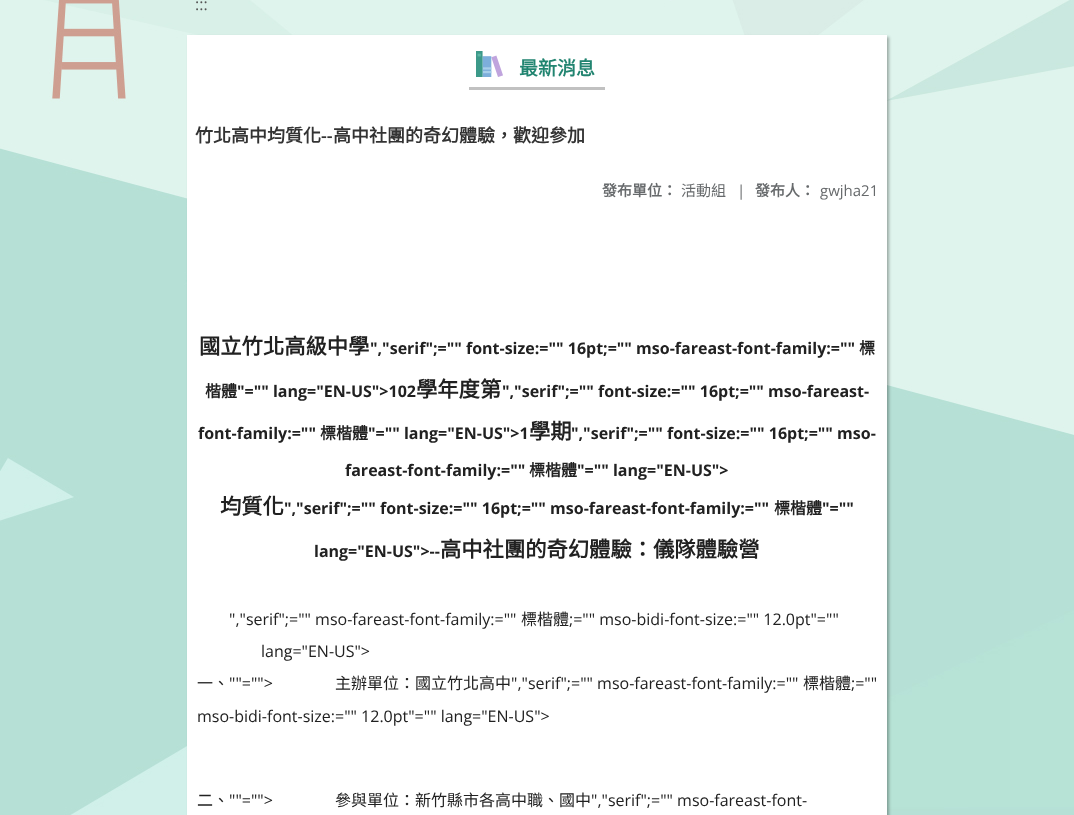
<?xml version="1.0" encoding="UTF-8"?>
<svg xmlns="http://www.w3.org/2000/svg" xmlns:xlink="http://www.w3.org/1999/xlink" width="1074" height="815">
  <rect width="100%" height="100%" fill="#ffffff" />
  <image x="0" y="0" width="1074" height="815" xlink:href="image1.png" />
  <rect x="189" y="37" width="700" height="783" fill="#000000" fill-opacity="0.3" filter="blur(1.5px)" />
  <rect x="187" y="35" width="700" height="780" fill="#ffffff" />
  <rect x="469" y="87" width="136" height="3" fill="#c1c1c1" />
  <image x="476" y="51" width="27" height="26" xlink:href="image2.png" />
  <text x="195" y="10" style="font-family: Open Sans; font-size: 16px; fill: #545454">:::</text>
  <text x="519" y="75" style="font-family: Noto Sans CJK TC; font-size: 19px; font-weight: bold; fill: #218470">最新消息</text>
  <text x="195" y="142" style="font-family: Noto Sans CJK TC; font-size: 18px; font-weight: bold; fill: #333333">竹北高中均質化</text>
  <text x="321" y="142" style="font-family: Open Sans; font-size: 18px; font-weight: 600; fill: #333333">--</text>
  <text x="333" y="142" style="font-family: Noto Sans CJK TC; font-size: 18px; font-weight: bold; fill: #333333">高中社團的奇幻體驗，歡迎參加</text>
  <text x="602" y="196" style="font-family: Noto Sans CJK TC; font-size: 15px; font-weight: bold; fill: #676a6c">發布單位：</text>
  <text x="681" y="196" style="font-family: Noto Sans CJK TC; font-size: 15px; fill: #676a6c">活動組</text>
  <text x="737" y="196" style="font-family: Open Sans; font-size: 15px; fill: #676a6c">|</text>
  <text x="755" y="196" style="font-family: Noto Sans CJK TC; font-size: 15px; font-weight: bold; fill: #676a6c">發布人：</text>
  <text x="820" y="196" style="font-family: Open Sans; font-size: 15px; fill: #676a6c">gwjha21</text>
  <text x="199" y="354" style="font-family: Noto Sans CJK TC; font-size: 21.3px; font-weight: bold; fill: #212121">國立竹北高級中學</text>
  <text x="370" y="354" style="font-family: Open Sans; font-size: 16px; font-weight: bold; fill: #212121">","serif";="" font-size:="" 16pt;="" mso-fareast-font-family:=""</text>
  <text x="859" y="354" style="font-family: Noto Sans CJK TC; font-size: 16px; font-weight: bold; fill: #212121">標</text>
  <text x="205" y="397" style="font-family: Noto Sans CJK TC; font-size: 16px; font-weight: bold; fill: #212121">楷體</text>
  <text x="237" y="397" style="font-family: Open Sans; font-size: 16px; font-weight: bold; fill: #212121">"="" lang="EN-US"&gt;102</text>
  <text x="416" y="397" style="font-family: Noto Sans CJK TC; font-size: 21.3px; font-weight: bold; fill: #212121">學年度第</text>
  <text x="502" y="397" style="font-family: Open Sans; font-size: 16px; font-weight: bold; fill: #212121">","serif";="" font-size:="" 16pt;="" mso-fareast-</text>
  <text x="198" y="439" style="font-family: Open Sans; font-size: 16px; font-weight: bold; fill: #212121">font-family:=""</text>
  <text x="320" y="439" style="font-family: Noto Sans CJK TC; font-size: 16px; font-weight: bold; fill: #212121">標楷體</text>
  <text x="368" y="439" style="font-family: Open Sans; font-size: 16px; font-weight: bold; fill: #212121">"="" lang="EN-US"&gt;1</text>
  <text x="529" y="439" style="font-family: Noto Sans CJK TC; font-size: 21.3px; font-weight: bold; fill: #212121">學期</text>
  <text x="571" y="439" style="font-family: Open Sans; font-size: 16px; font-weight: bold; fill: #212121">","serif";="" font-size:="" 16pt;="" mso-</text>
  <text x="345" y="476" style="font-family: Open Sans; font-size: 16px; font-weight: bold; fill: #212121">fareast-font-family:=""</text>
  <text x="529" y="476" style="font-family: Noto Sans CJK TC; font-size: 16px; font-weight: bold; fill: #212121">標楷體</text>
  <text x="577" y="476" style="font-family: Open Sans; font-size: 16px; font-weight: bold; fill: #212121">"="" lang="EN-US"&gt;</text>
  <text x="220" y="514" style="font-family: Noto Sans CJK TC; font-size: 21.3px; font-weight: bold; fill: #212121">均質化</text>
  <text x="284" y="514" style="font-family: Open Sans; font-size: 16px; font-weight: bold; fill: #212121">","serif";="" font-size:="" 16pt;="" mso-fareast-font-family:=""</text>
  <text x="774" y="514" style="font-family: Noto Sans CJK TC; font-size: 16px; font-weight: bold; fill: #212121">標楷體</text>
  <text x="822" y="514" style="font-family: Open Sans; font-size: 16px; font-weight: bold; fill: #212121">"=""</text>
  <text x="314" y="557" style="font-family: Open Sans; font-size: 16px; font-weight: bold; fill: #212121">lang="EN-US"&gt;--</text>
  <text x="440" y="557" style="font-family: Noto Sans CJK TC; font-size: 21.3px; font-weight: bold; fill: #212121">高中社團的奇幻體驗：儀隊體驗營</text>
  <text x="229" y="625" style="font-family: Open Sans; font-size: 16px; fill: #212121">","serif";="" mso-fareast-font-family:=""</text>
  <text x="521" y="625" style="font-family: Noto Sans CJK TC; font-size: 16px; fill: #212121">標楷體</text>
  <text x="569" y="625" style="font-family: Open Sans; font-size: 16px; fill: #212121">;="" mso-bidi-font-size:="" 12.0pt"=""</text>
  <text x="261" y="657" style="font-family: Open Sans; font-size: 16px; fill: #212121">lang="EN-US"&gt;</text>
  <text x="197" y="689" style="font-family: Noto Sans CJK TC; font-size: 16px; fill: #212121">一、</text>
  <text x="229" y="689" style="font-family: Open Sans; font-size: 16px; fill: #212121">""=""&gt;</text>
  <text x="335" y="689" style="font-family: Noto Sans CJK TC; font-size: 16px; fill: #212121">主辦單位：國立竹北高中</text>
  <text x="511" y="689" style="font-family: Open Sans; font-size: 16px; fill: #212121">","serif";="" mso-fareast-font-family:=""</text>
  <text x="803" y="689" style="font-family: Noto Sans CJK TC; font-size: 16px; fill: #212121">標楷體</text>
  <text x="851" y="689" style="font-family: Open Sans; font-size: 16px; fill: #212121">;=""</text>
  <text x="197" y="722" style="font-family: Open Sans; font-size: 16px; fill: #212121">mso-bidi-font-size:="" 12.0pt"="" lang="EN-US"&gt;</text>
  <text x="197" y="806" style="font-family: Noto Sans CJK TC; font-size: 16px; fill: #212121">二、</text>
  <text x="229" y="806" style="font-family: Open Sans; font-size: 16px; fill: #212121">""=""&gt;</text>
  <text x="335" y="806" style="font-family: Noto Sans CJK TC; font-size: 16px; fill: #212121">參與單位：新竹縣市各高中職、國中</text>
  <text x="591" y="806" style="font-family: Open Sans; font-size: 16px; fill: #212121">","serif";="" mso-fareast-font-</text>
</svg>
